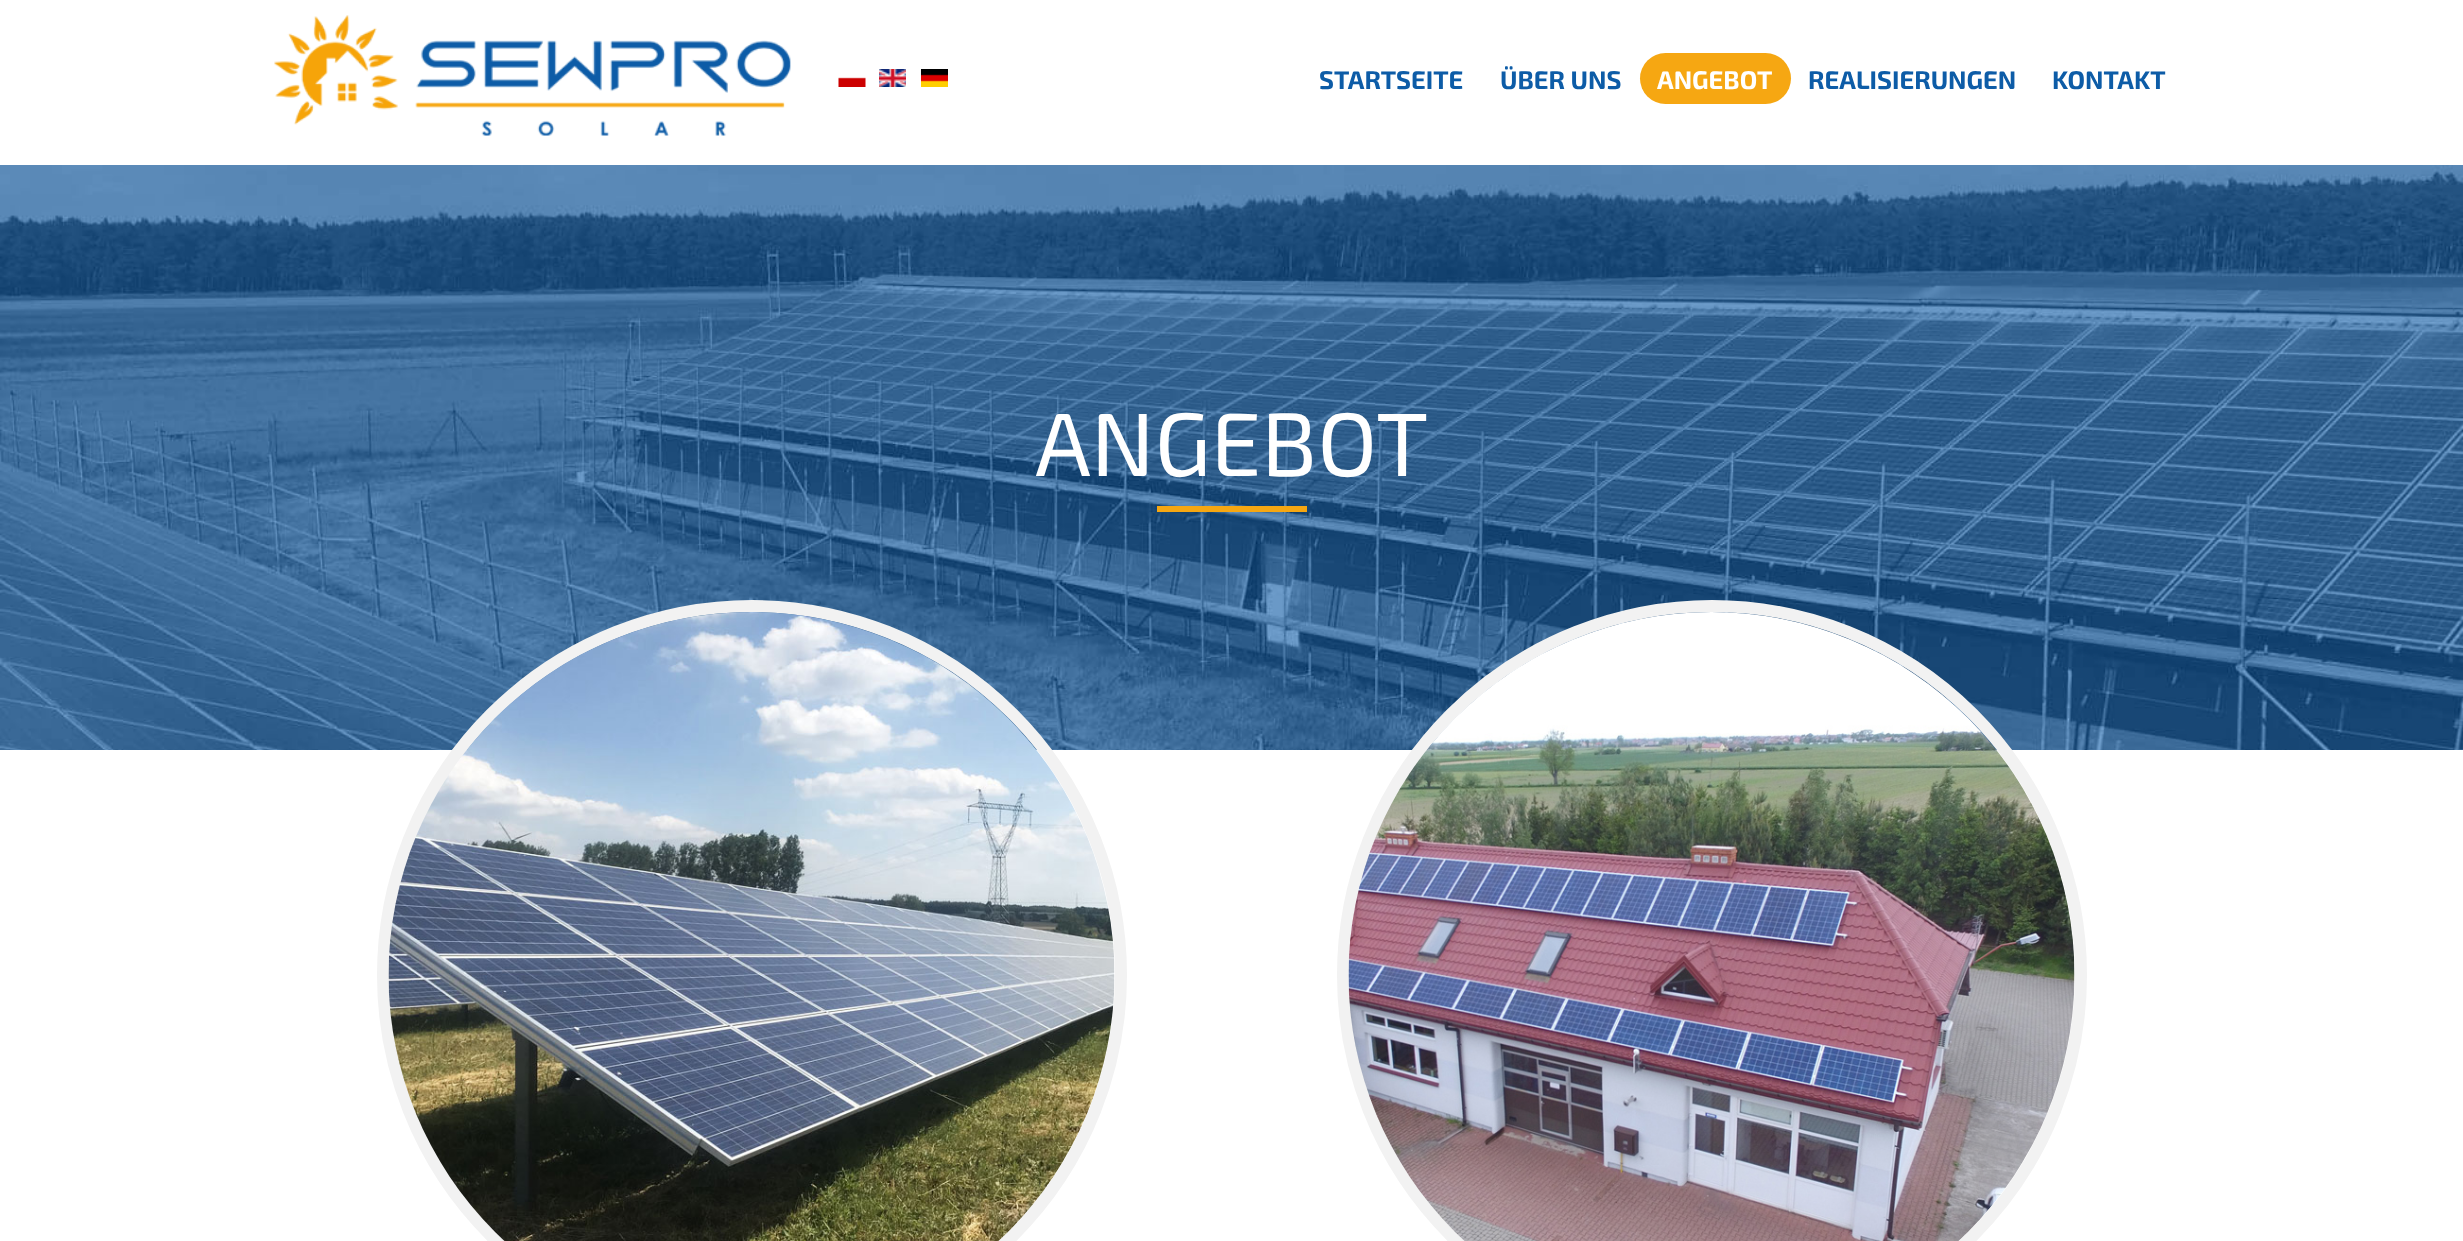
<?xml version="1.0" encoding="UTF-8"?>
<svg xmlns="http://www.w3.org/2000/svg" xmlns:xlink="http://www.w3.org/1999/xlink" width="2463" height="1241">
  <rect width="100%" height="100%" fill="#ffffff" />
  <image x="274" y="15" width="517" height="121" xlink:href="image1.png" />
  <image x="838" y="77" width="28" height="10" xlink:href="image2.png" />
  <image x="879" y="69" width="27" height="18" xlink:href="image3.png" />
  <image x="921" y="69" width="27" height="18" xlink:href="image4.png" />
  <rect x="1640" y="53" width="151" height="51" rx="25.5" fill="#f6a712" />
  <image x="0" y="165" width="2463" height="585" xlink:href="image5.png" />
  <rect x="1157" y="506" width="150" height="6" fill="#f6a712" />
  <circle cx="752" cy="975" r="369" fill="none" stroke="#f2f2f2" stroke-width="12" />
  <image x="388" y="612" width="727" height="629" xlink:href="image6.png" />
  <circle cx="1712" cy="975" r="369" fill="none" stroke="#f2f2f2" stroke-width="12" />
  <image x="1348" y="612" width="727" height="629" xlink:href="image7.png" />
  <text x="1319" y="89" style="font-family: 'Exo 2'; font-size: 25.5px; font-weight: bold; fill: #0d5ca7">STARTSEITE</text>
  <text x="1500" y="89" style="font-family: 'Exo 2'; font-size: 25.5px; font-weight: bold; fill: #0d5ca7">ÜBER UNS</text>
  <text x="1657" y="89" style="font-family: 'Exo 2'; font-size: 25.5px; font-weight: bold; fill: #ffffff">ANGEBOT</text>
  <text x="1808" y="89" style="font-family: 'Exo 2'; font-size: 25.5px; font-weight: bold; fill: #0d5ca7">REALISIERUNGEN</text>
  <text x="2052" y="89" style="font-family: 'Exo 2'; font-size: 25.5px; font-weight: bold; fill: #0d5ca7">KONTAKT</text>
  <text x="1035" y="476" style="font-family: 'Exo 2'; font-size: 90px; fill: #ffffff">ANGEBOT</text>
</svg>
